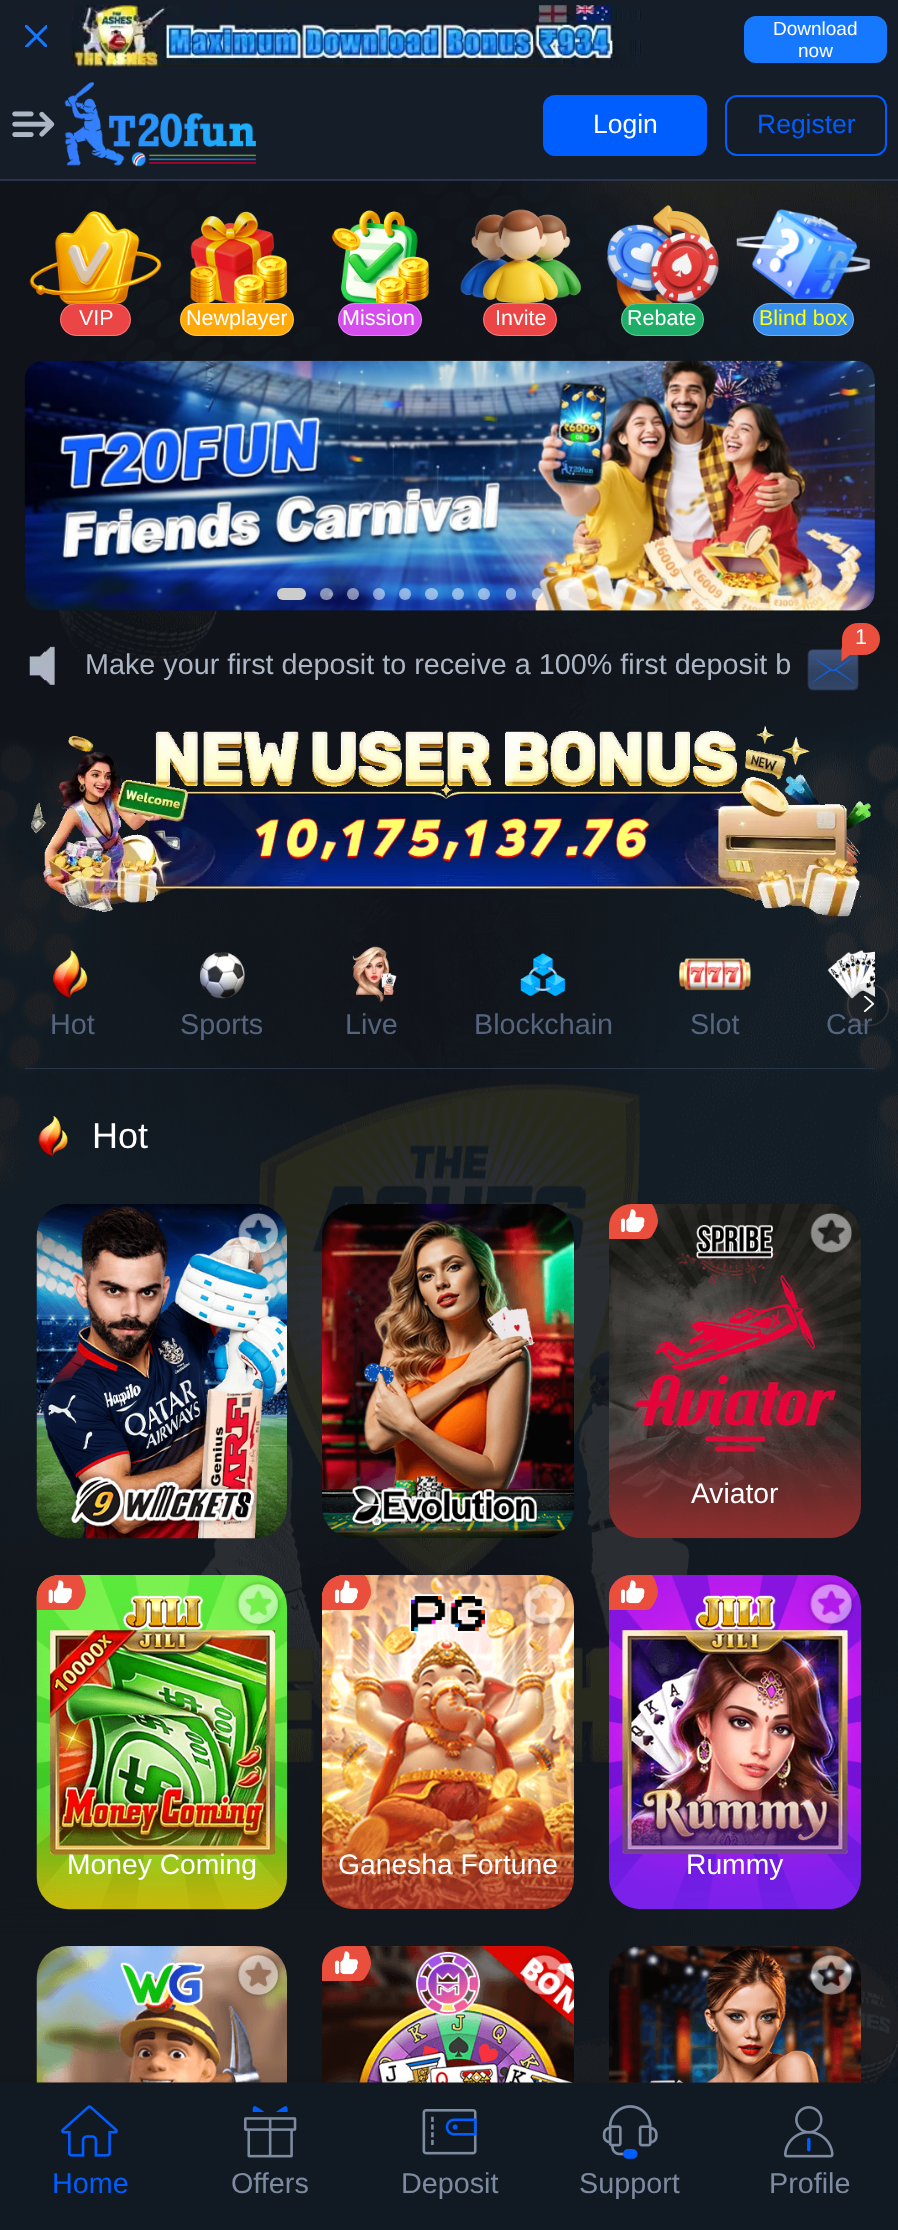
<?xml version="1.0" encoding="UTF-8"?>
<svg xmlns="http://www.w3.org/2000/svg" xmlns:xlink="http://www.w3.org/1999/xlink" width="898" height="2230">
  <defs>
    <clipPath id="clip1"><path d="M 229 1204 h 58 v 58 h -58 z m 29 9 c 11 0 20 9 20 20 c 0 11 -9 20 -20 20 c -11 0 -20 -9 -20 -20 c 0 -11 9 -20 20 -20 z" clip-rule="evenodd" /></clipPath>
    <clipPath id="clip2"><path d="M 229 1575 h 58 v 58 h -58 z m 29 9 c 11 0 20 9 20 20 c 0 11 -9 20 -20 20 c -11 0 -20 -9 -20 -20 c 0 -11 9 -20 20 -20 z" clip-rule="evenodd" /></clipPath>
    <clipPath id="clip3"><path d="M 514 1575 h 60 v 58 h -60 z m 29 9 h 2 c 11 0 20 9 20 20 c 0 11 -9 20 -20 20 h -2 c -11 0 -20 -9 -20 -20 c 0 -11 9 -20 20 -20 z" clip-rule="evenodd" /></clipPath>
    <clipPath id="clip4"><path d="M 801 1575 h 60 v 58 h -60 z m 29 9 h 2 c 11 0 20 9 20 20 c 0 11 -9 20 -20 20 h -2 c -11 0 -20 -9 -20 -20 c 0 -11 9 -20 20 -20 z" clip-rule="evenodd" /></clipPath>
    <clipPath id="clip5"><path d="M 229 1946 h 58 v 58 h -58 z m 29 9 c 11 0 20 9 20 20 c 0 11 -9 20 -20 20 c -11 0 -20 -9 -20 -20 c 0 -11 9 -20 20 -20 z" clip-rule="evenodd" /></clipPath>
    <clipPath id="clip6"><path d="M 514 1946 h 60 v 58 h -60 z m 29 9 h 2 c 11 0 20 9 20 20 c 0 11 -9 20 -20 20 h -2 c -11 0 -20 -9 -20 -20 c 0 -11 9 -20 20 -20 z" clip-rule="evenodd" /></clipPath>
    <clipPath id="clip7"><path d="M 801 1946 h 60 v 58 h -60 z m 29 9 h 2 c 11 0 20 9 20 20 c 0 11 -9 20 -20 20 h -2 c -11 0 -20 -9 -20 -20 c 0 -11 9 -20 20 -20 z" clip-rule="evenodd" /></clipPath>
    <clipPath id="clip8"><rect x="186" y="308" width="101" height="23" /></clipPath>
  </defs>
  <rect width="100%" height="100%" fill="#ffffff" />
  <rect width="898" height="179" fill="#151d29" />
  <image x="25" y="25" width="22" height="22" xlink:href="image1.png" />
  <image x="71" y="5" width="571" height="62" xlink:href="image2.png" />
  <rect x="745" y="17" width="141" height="45" rx="11" fill="#1678ff" stroke="#1678ff" stroke-width="2" />
  <rect y="179" width="898" height="2" fill="#293548" />
  <image x="12" y="111" width="43" height="26" xlink:href="image3.png" />
  <image x="64" y="82" width="192" height="85" xlink:href="image4.png" />
  <rect x="544" y="96" width="162" height="59" rx="11" fill="#005dfe" stroke="#005dfe" stroke-width="2" />
  <rect x="726" y="96" width="160" height="59" rx="11" fill="none" stroke="#005dfe" stroke-width="2" />
  <image x="0" y="181" width="898" height="1902" xlink:href="image5.png" />
  <image x="29" y="211" width="133" height="94" xlink:href="image6.png" />
  <rect x="60" y="303" width="71" height="33" rx="16.5" fill="#eb4545" />
  <rect x="60.5" y="303.5" width="70" height="32" rx="16" fill="none" stroke="#ffffff" stroke-opacity="0.3" />
  <image x="190" y="211" width="97" height="92" xlink:href="image7.png" />
  <rect x="180" y="303" width="114" height="33" rx="16.5" fill="#ffaa09" />
  <rect x="180.5" y="303.5" width="113" height="32" rx="16" fill="none" stroke="#ffffff" stroke-opacity="0.3" />
  <image x="331" y="210" width="98" height="94" xlink:href="image8.png" />
  <rect x="338" y="303" width="84" height="33" rx="16.5" fill="#d64ded" />
  <rect x="338.5" y="303.5" width="83" height="32" rx="16" fill="none" stroke="#ffffff" stroke-opacity="0.3" />
  <image x="460" y="209" width="122" height="94" xlink:href="image9.png" />
  <rect x="483" y="303" width="74" height="33" rx="16.5" fill="#eb4545" />
  <rect x="483.5" y="303.5" width="73" height="32" rx="16" fill="none" stroke="#ffffff" stroke-opacity="0.3" />
  <image x="607" y="205" width="112" height="103" xlink:href="image10.png" />
  <rect x="621" y="303" width="83" height="33" rx="16.5" fill="#1fae68" />
  <rect x="621.5" y="303.5" width="82" height="32" rx="16" fill="none" stroke="#ffffff" stroke-opacity="0.3" />
  <image x="736" y="209" width="134" height="91" xlink:href="image11.png" />
  <rect x="753" y="303" width="101" height="33" rx="16.5" fill="#368dec" />
  <rect x="753.5" y="303.5" width="100" height="32" rx="16" fill="none" stroke="#ffffff" stroke-opacity="0.3" />
  <image x="24" y="360" width="851" height="251" xlink:href="image12.png" />
  <rect x="277" y="588" width="29" height="12" rx="6" fill="#ffffff" />
  <path d="M 283 588 h 17 c 3.5 0 6 2.5 6 6 c 0 3.5 -2.5 6 -6 6 h -17 c -3.5 0 -6 -2.5 -6 -6 c 0 -3.5 2.5 -6 6 -6 z" fill="#000000" fill-opacity="0.2" />
  <rect x="320" y="588" width="13" height="12" rx="6" fill="#ffffff" fill-opacity="0.5" />
  <circle cx="353" cy="594" r="6" fill="#ffffff" fill-opacity="0.5" />
  <circle cx="379" cy="594" r="6" fill="#ffffff" fill-opacity="0.5" />
  <circle cx="405" cy="594" r="6" fill="#ffffff" fill-opacity="0.5" />
  <rect x="425" y="588" width="13" height="12" rx="6" fill="#ffffff" fill-opacity="0.5" />
  <circle cx="458" cy="594" r="6" fill="#ffffff" fill-opacity="0.5" />
  <circle cx="484" cy="594" r="6" fill="#ffffff" fill-opacity="0.5" />
  <rect x="506" y="588" width="10" height="12" rx="5" fill="#ffffff" fill-opacity="0.5" />
  <rect x="532" y="588" width="11" height="12" rx="5.5" fill="#ffffff" fill-opacity="0.5" />
  <rect x="558" y="588" width="11" height="12" rx="5.5" fill="#ffffff" fill-opacity="0.5" />
  <circle cx="591" cy="594" r="6" fill="#ffffff" fill-opacity="0.5" />
  <circle cx="617" cy="594" r="6" fill="#ffffff" fill-opacity="0.5" />
  <image x="807" y="649" width="52" height="42" xlink:href="image13.png" />
  <path d="M 858 623 h 6 c 9 0 16 7 16 16 c 0 9 -7 16 -16 16 h -22 v -16 c 0 -9 7 -16 16 -16 z" fill="#ea4e3d" />
  <path d="M 841.5 661.5 v -14 l 9 7 z" fill="#ea4e3d" />
  <image x="29" y="646" width="26" height="39" xlink:href="image14.png" />
  <image x="31" y="726" width="840" height="191" xlink:href="image15.png" />
  <image x="255" y="819" width="25" height="41" xlink:href="image16.png" />
  <image x="286" y="818" width="33" height="43" xlink:href="image17.png" />
  <image x="319" y="840" width="18" height="23" xlink:href="image18.png" />
  <image x="341" y="819" width="25" height="41" xlink:href="image19.png" />
  <image x="372" y="818" width="35" height="42" xlink:href="image20.png" />
  <image x="407" y="819" width="35" height="41" xlink:href="image21.png" />
  <image x="442" y="840" width="18" height="23" xlink:href="image22.png" />
  <image x="464" y="819" width="25" height="41" xlink:href="image23.png" />
  <image x="494" y="818" width="33" height="42" xlink:href="image24.png" />
  <image x="529" y="818" width="34" height="42" xlink:href="image25.png" />
  <image x="565" y="845" width="14" height="14" xlink:href="image26.png" />
  <image x="581" y="818" width="34" height="42" xlink:href="image27.png" />
  <image x="616" y="818" width="34" height="43" xlink:href="image28.png" />
  <image x="827" y="950" width="48" height="49" xlink:href="image35.png" />
  <path d="M 868 1026 c -28 0 -28 -43 0 -43 c 29 0 29 43 0 43 z" fill="#000000" fill-opacity="0.1" />
  <path d="M 868.5 1025.5 c -27.5 0 -27.5 -41.5 0 -41.5 c 27 0 27 41.5 0 41.5 z" fill="none" stroke="#ffffff" stroke-opacity="0.1" stroke-width="1.8" />
  <image x="863" y="996" width="12" height="16" xlink:href="image29.png" />
  <rect x="25" y="1068" width="850" height="1" fill="#293548" />
  <image x="53" y="950" width="35" height="49" xlink:href="image30.png" />
  <image x="200" y="952" width="45" height="47" xlink:href="image31.png" />
  <image x="352" y="946" width="45" height="57" xlink:href="image32.png" />
  <image x="520" y="953" width="46" height="43" xlink:href="image33.png" />
  <image x="679" y="958" width="72" height="33" xlink:href="image34.png" />
  <image x="38" y="1116" width="30" height="41" xlink:href="image36.png" />
  <image x="36" y="1204" width="251" height="335" xlink:href="image37.png" />
  <g clip-path="url(#clip1)">
    <rect x="238" y="1213" width="40" height="40" rx="20" fill="#000000" fill-opacity="0.3" filter="blur(2.5px)" />
  </g>
  <image x="238" y="1212" width="41" height="41" xlink:href="image38.png" />
  <image x="322" y="1204" width="252" height="334" xlink:href="image39.png" />
  <image x="609" y="1204" width="252" height="335" xlink:href="image40.png" />
  <image x="609" y="1204" width="49" height="35" xlink:href="image41.png" />
  <image x="810" y="1213" width="42" height="40" xlink:href="image42.png" />
  <image x="36" y="1575" width="251" height="335" xlink:href="image43.png" />
  <image x="36" y="1575" width="50" height="35" xlink:href="image44.png" />
  <g clip-path="url(#clip2)">
    <rect x="238" y="1584" width="40" height="40" rx="20" fill="#000000" fill-opacity="0.3" filter="blur(2.5px)" />
  </g>
  <image x="238" y="1583" width="41" height="41" xlink:href="image45.png" />
  <image x="322" y="1575" width="252" height="335" xlink:href="image46.png" />
  <image x="322" y="1575" width="49" height="35" xlink:href="image47.png" />
  <g clip-path="url(#clip3)">
    <rect x="523" y="1584" width="42" height="40" rx="20" fill="#000000" fill-opacity="0.3" filter="blur(2.5px)" />
  </g>
  <image x="523" y="1584" width="42" height="40" xlink:href="image48.png" />
  <image x="609" y="1575" width="252" height="335" xlink:href="image49.png" />
  <image x="609" y="1575" width="49" height="35" xlink:href="image50.png" />
  <g clip-path="url(#clip4)">
    <rect x="810" y="1584" width="42" height="40" rx="20" fill="#000000" fill-opacity="0.3" filter="blur(2.5px)" />
  </g>
  <image x="810" y="1584" width="42" height="40" xlink:href="image51.png" />
  <image x="36" y="1946" width="251" height="137" xlink:href="image52.png" />
  <g clip-path="url(#clip5)">
    <rect x="238" y="1955" width="40" height="40" rx="20" fill="#000000" fill-opacity="0.3" filter="blur(2.5px)" />
  </g>
  <image x="238" y="1954" width="41" height="41" xlink:href="image53.png" />
  <image x="322" y="1946" width="252" height="137" xlink:href="image54.png" />
  <image x="322" y="1946" width="49" height="35" xlink:href="image55.png" />
  <g clip-path="url(#clip6)">
    <rect x="523" y="1955" width="42" height="40" rx="20" fill="#000000" fill-opacity="0.3" filter="blur(2.5px)" />
  </g>
  <image x="523" y="1955" width="42" height="40" xlink:href="image56.png" />
  <image x="609" y="1946" width="252" height="137" xlink:href="image57.png" />
  <g clip-path="url(#clip7)">
    <rect x="810" y="1955" width="42" height="40" rx="20" fill="#000000" fill-opacity="0.3" filter="blur(2.5px)" />
  </g>
  <image x="810" y="1955" width="42" height="40" xlink:href="image58.png" />
  <rect x="2" y="2083" width="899" height="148" fill="#000000" fill-opacity="0.1" filter="blur(3.5px)" />
  <rect y="2083" width="898" height="147" fill="#111923" />
  <image x="61" y="2105" width="57" height="52" xlink:href="image59.png" />
  <image x="252" y="2106" width="36" height="6" xlink:href="image60.png" />
  <image x="244" y="2117" width="53" height="41" xlink:href="image61.png" />
  <image x="422" y="2109" width="55" height="46" xlink:href="image62.png" />
  <image x="445" y="2118" width="32" height="18" xlink:href="image63.png" />
  <image x="602" y="2105" width="56" height="51" xlink:href="image64.png" />
  <image x="623" y="2149" width="15" height="10" xlink:href="image65.png" />
  <image x="784" y="2106" width="50" height="52" xlink:href="image66.png" />
  <image x="807" y="2137" width="4" height="15" xlink:href="image67.png" />
  <text x="773" y="35" style="font-family: Liberation Sans; font-size: 19px; fill: #ffffff">Download</text>
  <text x="798" y="57" style="font-family: Liberation Sans; font-size: 19px; fill: #ffffff">now</text>
  <text x="593" y="133" style="font-family: Liberation Sans; font-size: 26.5px; fill: #ffffff">Login</text>
  <text x="757" y="133" style="font-family: Liberation Sans; font-size: 26.5px; fill: #005dfe">Register</text>
  <text x="79" y="325" style="font-family: Liberation Sans; font-size: 21.5px; fill: #ffffff">VIP</text>
  <g clip-path="url(#clip8)">
    <text x="186" y="325" style="font-family: Liberation Sans; font-size: 21.5px; fill: #ffffff">Newplayer</text>
  </g>
  <text x="342" y="325" style="font-family: Liberation Sans; font-size: 21.5px; fill: #ffffff">Mission</text>
  <text x="495" y="325" style="font-family: Liberation Sans; font-size: 21.5px; fill: #ffffff">Invite</text>
  <text x="627" y="325" style="font-family: Liberation Sans; font-size: 21.5px; fill: #ffffff">Rebate</text>
  <text x="759" y="325" style="font-family: Liberation Sans; font-size: 21.5px; fill: #ffff00">Blind box</text>
  <text x="855" y="644" style="font-family: Liberation Sans; font-size: 21.5px; fill: #ffffff">1</text>
  <text x="85" y="674" style="font-family: Liberation Sans; font-size: 28.75px; fill: #adb6c4">Make your first deposit to receive a 100% first deposit b</text>
  <text x="50" y="1034" style="font-family: Liberation Sans; font-size: 28.75px; fill: #55657e">Hot</text>
  <text x="180" y="1034" style="font-family: Liberation Sans; font-size: 28.75px; fill: #55657e">Sports</text>
  <text x="345" y="1034" style="font-family: Liberation Sans; font-size: 28.75px; fill: #55657e">Live</text>
  <text x="474" y="1034" style="font-family: Liberation Sans; font-size: 28.75px; fill: #55657e">Blockchain</text>
  <text x="690" y="1034" style="font-family: Liberation Sans; font-size: 28.75px; fill: #55657e">Slot</text>
  <text x="826" y="1034" style="font-family: Liberation Sans; font-size: 28.75px; fill: #55657e">Car</text>
  <text x="92" y="1148" style="font-family: Liberation Sans; font-size: 36px; fill: #ffffff">Hot</text>
  <text x="691" y="1503" style="font-family: Liberation Sans; font-size: 28.25px; fill: #ffffff">Aviator</text>
  <text x="67" y="1874" style="font-family: Liberation Sans; font-size: 28.25px; fill: #ffffff">Money Coming</text>
  <text x="338" y="1874" style="font-family: Liberation Sans; font-size: 28.25px; fill: #ffffff">Ganesha Fortune</text>
  <text x="686" y="1874" style="font-family: Liberation Sans; font-size: 28.25px; fill: #ffffff">Rummy</text>
  <text x="52" y="2193" style="font-family: Liberation Sans; font-size: 28.75px; fill: #005dfe">Home</text>
  <text x="231" y="2193" style="font-family: Liberation Sans; font-size: 28.75px; fill: #7d8ba1">Offers</text>
  <text x="401" y="2193" style="font-family: Liberation Sans; font-size: 28.75px; fill: #7d8ba1">Deposit</text>
  <text x="579" y="2193" style="font-family: Liberation Sans; font-size: 28.75px; fill: #7d8ba1">Support</text>
  <text x="769" y="2193" style="font-family: Liberation Sans; font-size: 28.75px; fill: #7d8ba1">Profile</text>
</svg>
